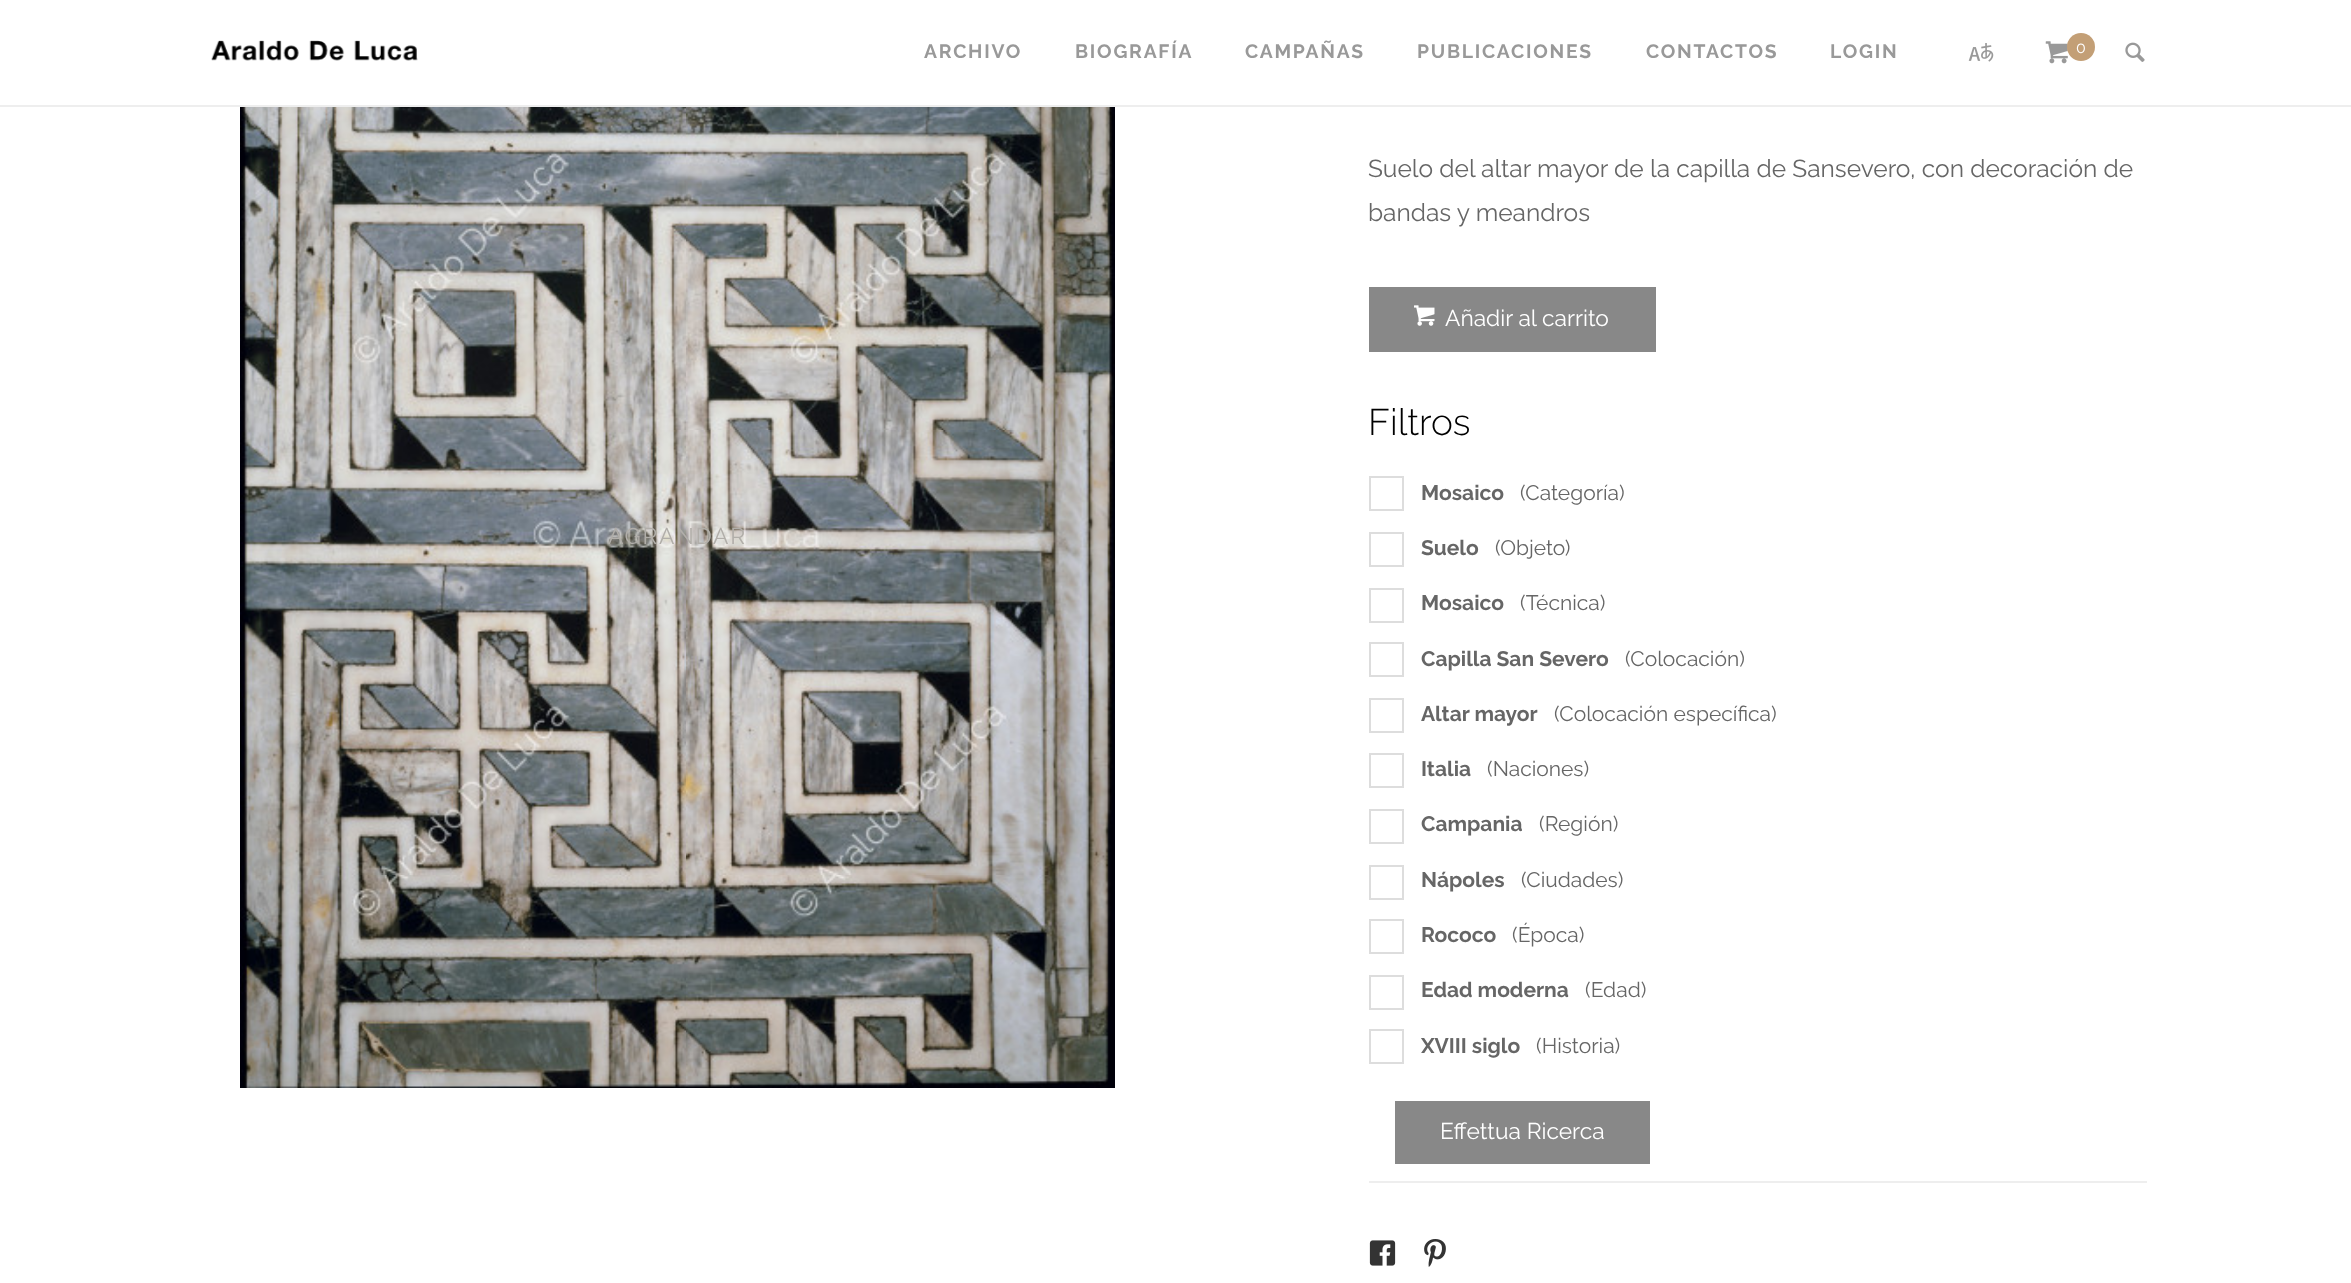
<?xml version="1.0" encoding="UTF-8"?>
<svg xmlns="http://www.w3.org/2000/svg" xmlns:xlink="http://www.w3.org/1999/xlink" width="2351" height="1283">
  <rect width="100%" height="100%" fill="#ffffff" />
  <rect y="105" width="2351" height="2" fill="#eeeeee" />
  <image x="211" y="40" width="207" height="21" xlink:href="image1.png" />
  <image x="1968" y="43" width="26" height="19" xlink:href="image2.png" />
  <image x="2045" y="41" width="23" height="23" xlink:href="image3.png" />
  <circle cx="2081" cy="47" r="14" fill="#c39f76" />
  <image x="2125" y="42" width="20" height="20" xlink:href="image4.png" />
  <image x="240" y="107" width="875" height="981" xlink:href="image5.png" />
  <rect x="1369" y="287" width="287" height="65" fill="#888888" />
  <image x="1414" y="305" width="21" height="21" xlink:href="image6.png" />
  <rect x="1370" y="477" width="33" height="33" fill="none" stroke="#dddddd" stroke-width="2" />
  <rect x="1370" y="533" width="33" height="33" fill="none" stroke="#dddddd" stroke-width="2" />
  <rect x="1370" y="589" width="33" height="33" fill="none" stroke="#dddddd" stroke-width="2" />
  <rect x="1370" y="643" width="33" height="33" fill="none" stroke="#dddddd" stroke-width="2" />
  <rect x="1370" y="699" width="33" height="33" fill="none" stroke="#dddddd" stroke-width="2" />
  <rect x="1370" y="754" width="33" height="33" fill="none" stroke="#dddddd" stroke-width="2" />
  <rect x="1370" y="810" width="33" height="33" fill="none" stroke="#dddddd" stroke-width="2" />
  <rect x="1370" y="866" width="33" height="33" fill="none" stroke="#dddddd" stroke-width="2" />
  <rect x="1370" y="920" width="33" height="33" fill="none" stroke="#dddddd" stroke-width="2" />
  <rect x="1370" y="976" width="33" height="33" fill="none" stroke="#dddddd" stroke-width="2" />
  <rect x="1370" y="1030" width="33" height="33" fill="none" stroke="#dddddd" stroke-width="2" />
  <rect x="1395" y="1101" width="255" height="63" fill="#888888" />
  <rect x="1369" y="1181" width="778" height="2" fill="#eeeeee" />
  <image x="1369" y="1240" width="27" height="26" xlink:href="image7.png" />
  <image x="1424" y="1239" width="22" height="28" xlink:href="image8.png" />
  <text x="924" y="58" style="font-family: Raleway; font-size: 19.25px; font-weight: bold; letter-spacing: 1.75px; fill: #999999">ARCHIVO</text>
  <text x="1075" y="58" style="font-family: Raleway; font-size: 19.25px; font-weight: bold; letter-spacing: 1.75px; fill: #999999">BIOGRAFÍA</text>
  <text x="1245" y="58" style="font-family: Raleway; font-size: 19.25px; font-weight: bold; letter-spacing: 1.75px; fill: #999999">CAMPAÑAS</text>
  <text x="1417" y="58" style="font-family: Raleway; font-size: 19.25px; font-weight: bold; letter-spacing: 1.75px; fill: #999999">PUBLICACIONES</text>
  <text x="1646" y="58" style="font-family: Raleway; font-size: 19.25px; font-weight: bold; letter-spacing: 1.75px; fill: #999999">CONTACTOS</text>
  <text x="1830" y="58" style="font-family: Raleway; font-size: 19.25px; font-weight: bold; letter-spacing: 1.75px; fill: #999999">LOGIN</text>
  <text x="2076" y="53" style="font-family: Raleway; font-size: 16px; fill: #ffffff">0</text>
  <text x="608" y="544" style="font-family: Raleway; font-size: 22.75px; letter-spacing: 1.75px; fill: #b1aea9">AGRANDAR</text>
  <text x="1368" y="177" style="font-family: Raleway; font-size: 24.5px; fill: #666666">Suelo del altar mayor de la capilla de Sansevero, con decoración de</text>
  <text x="1368" y="221" style="font-family: Raleway; font-size: 24.5px; fill: #666666">bandas y meandros</text>
  <text x="1445" y="326" style="font-family: Raleway; font-size: 22.75px; fill: #ffffff">Añadir al carrito</text>
  <text x="1368" y="435" style="font-family: Raleway; font-size: 37px; font-weight: 300; fill: #000000">Filtros</text>
  <text x="1421" y="500" style="font-family: Raleway; font-size: 21px; font-weight: bold; fill: #666666">Mosaico</text>
  <text x="1520" y="500" style="font-family: Raleway; font-size: 21px; fill: #666666">(Categoría)</text>
  <text x="1421" y="555" style="font-family: Raleway; font-size: 21px; font-weight: bold; fill: #666666">Suelo</text>
  <text x="1495" y="555" style="font-family: Raleway; font-size: 21px; fill: #666666">(Objeto)</text>
  <text x="1421" y="610" style="font-family: Raleway; font-size: 21px; font-weight: bold; fill: #666666">Mosaico</text>
  <text x="1520" y="610" style="font-family: Raleway; font-size: 21px; fill: #666666">(Técnica)</text>
  <text x="1421" y="666" style="font-family: Raleway; font-size: 21px; font-weight: bold; fill: #666666">Capilla San Severo</text>
  <text x="1625" y="666" style="font-family: Raleway; font-size: 21px; fill: #666666">(Colocación)</text>
  <text x="1421" y="721" style="font-family: Raleway; font-size: 21px; font-weight: bold; fill: #666666">Altar mayor</text>
  <text x="1554" y="721" style="font-family: Raleway; font-size: 21px; fill: #666666">(Colocación específica)</text>
  <text x="1421" y="776" style="font-family: Raleway; font-size: 21px; font-weight: bold; fill: #666666">Italia</text>
  <text x="1487" y="776" style="font-family: Raleway; font-size: 21px; fill: #666666">(Naciones)</text>
  <text x="1421" y="831" style="font-family: Raleway; font-size: 21px; font-weight: bold; fill: #666666">Campania</text>
  <text x="1539" y="831" style="font-family: Raleway; font-size: 21px; fill: #666666">(Región)</text>
  <text x="1421" y="887" style="font-family: Raleway; font-size: 21px; font-weight: bold; fill: #666666">Nápoles</text>
  <text x="1521" y="887" style="font-family: Raleway; font-size: 21px; fill: #666666">(Ciudades)</text>
  <text x="1421" y="942" style="font-family: Raleway; font-size: 21px; font-weight: bold; fill: #666666">Rococo</text>
  <text x="1512" y="942" style="font-family: Raleway; font-size: 21px; fill: #666666">(Época)</text>
  <text x="1421" y="997" style="font-family: Raleway; font-size: 21px; font-weight: bold; fill: #666666">Edad moderna</text>
  <text x="1585" y="997" style="font-family: Raleway; font-size: 21px; fill: #666666">(Edad)</text>
  <text x="1421" y="1053" style="font-family: Raleway; font-size: 21px; font-weight: bold; fill: #666666">XVIII siglo</text>
  <text x="1536" y="1053" style="font-family: Raleway; font-size: 21px; fill: #666666">(Historia)</text>
  <text x="1440" y="1139" style="font-family: Raleway; font-size: 22.75px; fill: #ffffff">Effettua Ricerca</text>
</svg>
